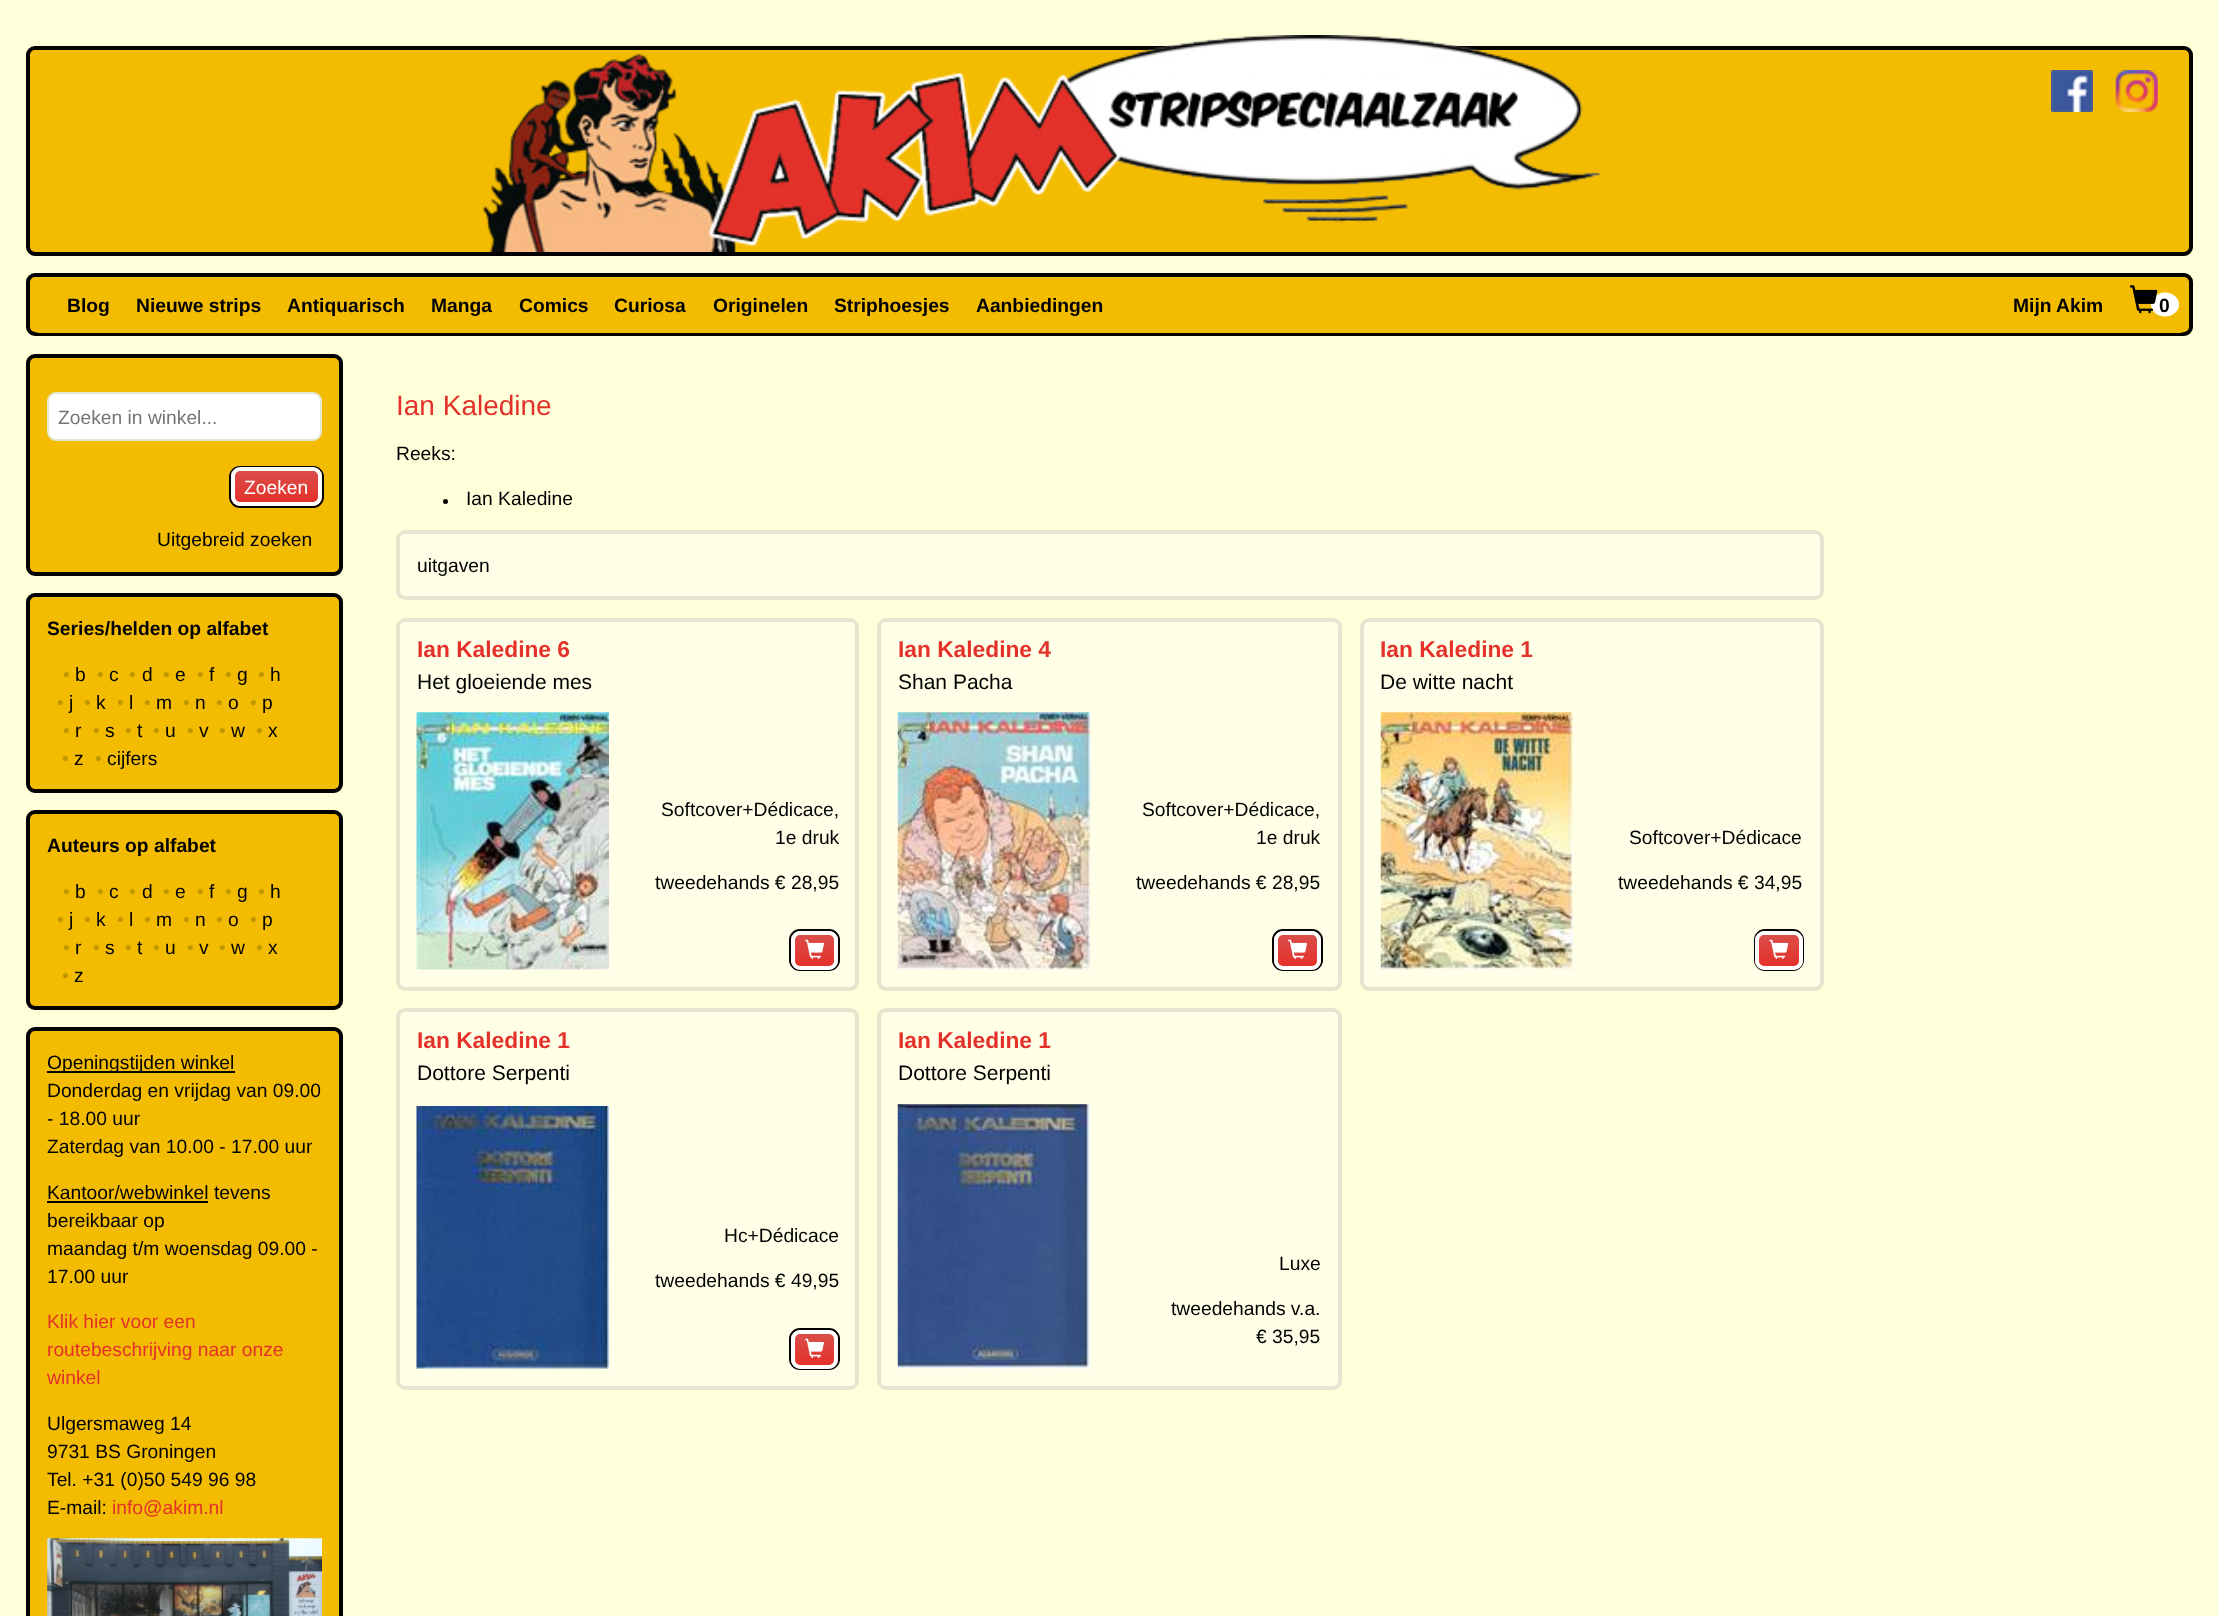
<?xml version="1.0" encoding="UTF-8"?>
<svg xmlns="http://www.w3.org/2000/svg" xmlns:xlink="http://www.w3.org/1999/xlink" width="2218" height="1616">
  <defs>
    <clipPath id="clip1"><rect x="231" y="467" width="91" height="39" rx="9" /></clipPath>
    <linearGradient id="g1" gradientUnits="userSpaceOnUse" x1="277" y1="471" x2="277" y2="502"><stop offset="0.01" stop-color="#e25651" /><stop offset="0.01" stop-color="#db4d48" /><stop offset="1" stop-color="#e4312a" /><stop offset="1" stop-color="#e25651" /><stop offset="1" stop-color="#e4312a" /></linearGradient>
    <clipPath id="clip2"><rect x="791" y="931" width="47" height="39" rx="9" /></clipPath>
    <linearGradient id="g2" gradientUnits="userSpaceOnUse" x1="815" y1="935" x2="815" y2="966"><stop offset="0.01" stop-color="#e25651" /><stop offset="0.01" stop-color="#db4d48" /><stop offset="1" stop-color="#e4312a" /><stop offset="1" stop-color="#e25651" /><stop offset="1" stop-color="#e4312a" /></linearGradient>
    <clipPath id="clip3"><rect x="1274" y="931" width="47" height="39" rx="9" /></clipPath>
    <linearGradient id="g3" gradientUnits="userSpaceOnUse" x1="1298" y1="935" x2="1298" y2="966"><stop offset="0.01" stop-color="#e25651" /><stop offset="0.01" stop-color="#db4d48" /><stop offset="1" stop-color="#e4312a" /><stop offset="1" stop-color="#e25651" /><stop offset="1" stop-color="#e4312a" /></linearGradient>
    <clipPath id="clip4"><rect x="1755" y="931" width="48" height="39" rx="9" /></clipPath>
    <linearGradient id="g4" gradientUnits="userSpaceOnUse" x1="1779" y1="935" x2="1779" y2="966"><stop offset="0.01" stop-color="#e25651" /><stop offset="0.01" stop-color="#db4d48" /><stop offset="1" stop-color="#e4312a" /><stop offset="1" stop-color="#e25651" /><stop offset="1" stop-color="#e4312a" /></linearGradient>
    <clipPath id="clip5"><rect x="791" y="1330" width="47" height="39" rx="9" /></clipPath>
    <linearGradient id="g5" gradientUnits="userSpaceOnUse" x1="815" y1="1334" x2="815" y2="1365"><stop offset="0.01" stop-color="#e25651" /><stop offset="0.01" stop-color="#db4d48" /><stop offset="1" stop-color="#e4312a" /><stop offset="1" stop-color="#e25651" /><stop offset="1" stop-color="#e4312a" /></linearGradient>
  </defs>
  <rect width="100%" height="100%" fill="#ffffd9" />
  <rect x="28" y="48" width="2163" height="206" rx="7" fill="#f3bc00" stroke="#020100" stroke-width="4" />
  <image x="482" y="35" width="1119" height="217" xlink:href="image1.png" />
  <image x="2051" y="70" width="42" height="42" xlink:href="image2.png" />
  <image x="2115" y="70" width="43" height="42" xlink:href="image3.png" />
  <rect x="28" y="275" width="2163" height="59" rx="7" fill="#f3bc00" stroke="#020100" stroke-width="4" />
  <rect x="30" y="277" width="2159" height="56" rx="9" fill="#f3bc00" />
  <ellipse cx="2165" cy="304.5" rx="14" ry="12" fill="#ffffff" />
  <image x="2129" y="285" width="29" height="29" xlink:href="image4.png" />
  <rect x="28" y="356" width="313" height="218" rx="7" fill="#f3bc00" stroke="#020100" stroke-width="4" />
  <rect x="48" y="393" width="273" height="47" rx="8" fill="#ffffff" stroke="#e6e6d2" stroke-width="2" />
  <rect x="230" y="467" width="93" height="40" rx="10" fill="none" stroke="#000000" stroke-width="2" />
  <g clip-path="url(#clip1)">
    <rect x="231" y="471" width="91" height="31" fill="url(#g1)" />
  </g>
  <rect x="233" y="469" width="87" height="35" rx="7" fill="none" stroke="#ffffff" stroke-width="4" />
  <rect x="28" y="595" width="313" height="196" rx="7" fill="#f3bc00" stroke="#020100" stroke-width="4" />
  <rect x="28" y="812" width="313" height="196" rx="7" fill="#f3bc00" stroke="#020100" stroke-width="4" />
  <rect x="28" y="1029" width="313" height="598" rx="7" fill="#f3bc00" stroke="#020100" stroke-width="4" />
  <rect x="47" y="1071" width="188" height="2" fill="#000000" />
  <rect x="47" y="1201" width="161" height="2" fill="#000000" />
  <image x="47" y="1538" width="275" height="78" xlink:href="image5.png" />
  <circle cx="445.5" cy="501.5" r="2.5" fill="#000000" />
  <rect x="396" y="530" width="1428" height="70" rx="9" fill="#ffffe8" />
  <rect x="398" y="532" width="1424" height="66" rx="7" fill="none" stroke="#000000" stroke-opacity="0.1" stroke-width="4" />
  <rect x="396" y="618" width="463" height="373" rx="9" fill="#ffffe8" />
  <rect x="398" y="620" width="459" height="369" rx="7" fill="none" stroke="#000000" stroke-opacity="0.1" stroke-width="4" />
  <image x="416" y="712" width="193" height="258" xlink:href="image6.png" />
  <rect x="790" y="930" width="49" height="40" rx="10" fill="none" stroke="#000000" stroke-width="2" />
  <g clip-path="url(#clip2)">
    <rect x="791" y="935" width="47" height="31" fill="url(#g2)" />
  </g>
  <rect x="793" y="933" width="43" height="35" rx="7" fill="none" stroke="#ffffff" stroke-width="4" />
  <image x="805" y="939" width="19" height="20" xlink:href="image7.png" />
  <rect x="877" y="618" width="465" height="373" rx="9" fill="#ffffe8" />
  <rect x="879" y="620" width="461" height="369" rx="7" fill="none" stroke="#000000" stroke-opacity="0.1" stroke-width="4" />
  <image x="897" y="712" width="194" height="258" xlink:href="image8.png" />
  <rect x="1273" y="930" width="49" height="40" rx="10" fill="none" stroke="#000000" stroke-width="2" />
  <g clip-path="url(#clip3)">
    <rect x="1274" y="935" width="47" height="31" fill="url(#g3)" />
  </g>
  <rect x="1276" y="933" width="43" height="35" rx="7" fill="none" stroke="#ffffff" stroke-width="4" />
  <image x="1288" y="939" width="19" height="20" xlink:href="image7.png" />
  <rect x="1360" y="618" width="464" height="373" rx="9" fill="#ffffe8" />
  <rect x="1362" y="620" width="460" height="369" rx="7" fill="none" stroke="#000000" stroke-opacity="0.1" stroke-width="4" />
  <image x="1380" y="712" width="194" height="258" xlink:href="image9.png" />
  <rect x="1755" y="930" width="48" height="40" rx="10" fill="none" stroke="#000000" stroke-width="2" />
  <g clip-path="url(#clip4)">
    <rect x="1755" y="935" width="48" height="31" fill="url(#g4)" />
  </g>
  <rect x="1757" y="933" width="44" height="35" rx="7" fill="none" stroke="#ffffff" stroke-width="4" />
  <image x="1769" y="939" width="20" height="20" xlink:href="image10.png" />
  <rect x="396" y="1008" width="463" height="382" rx="9" fill="#ffffe8" />
  <rect x="398" y="1010" width="459" height="378" rx="7" fill="none" stroke="#000000" stroke-opacity="0.1" stroke-width="4" />
  <image x="416" y="1106" width="193" height="263" xlink:href="image11.png" />
  <rect x="790" y="1329" width="49" height="40" rx="10" fill="none" stroke="#000000" stroke-width="2" />
  <g clip-path="url(#clip5)">
    <rect x="791" y="1334" width="47" height="31" fill="url(#g5)" />
  </g>
  <rect x="793" y="1332" width="43" height="35" rx="7" fill="none" stroke="#ffffff" stroke-width="4" />
  <image x="805" y="1338" width="19" height="20" xlink:href="image7.png" />
  <rect x="877" y="1008" width="465" height="382" rx="9" fill="#ffffe8" />
  <rect x="879" y="1010" width="461" height="378" rx="7" fill="none" stroke="#000000" stroke-opacity="0.1" stroke-width="4" />
  <image x="897" y="1104" width="194" height="265" xlink:href="image12.png" />
  <text x="67" y="312" style="font-family: Liberation Sans; font-size: 19.25px; font-weight: bold; fill: #000000">Blog</text>
  <text x="136" y="312" style="font-family: Liberation Sans; font-size: 19.25px; font-weight: bold; fill: #000000">Nieuwe strips</text>
  <text x="287" y="312" style="font-family: Liberation Sans; font-size: 19.25px; font-weight: bold; fill: #000000">Antiquarisch</text>
  <text x="431" y="312" style="font-family: Liberation Sans; font-size: 19.25px; font-weight: bold; fill: #000000">Manga</text>
  <text x="519" y="312" style="font-family: Liberation Sans; font-size: 19.25px; font-weight: bold; fill: #000000">Comics</text>
  <text x="614" y="312" style="font-family: Liberation Sans; font-size: 19.25px; font-weight: bold; fill: #000000">Curiosa</text>
  <text x="713" y="312" style="font-family: Liberation Sans; font-size: 19.25px; font-weight: bold; fill: #000000">Originelen</text>
  <text x="834" y="312" style="font-family: Liberation Sans; font-size: 19.25px; font-weight: bold; fill: #000000">Striphoesjes</text>
  <text x="976" y="312" style="font-family: Liberation Sans; font-size: 19.25px; font-weight: bold; fill: #000000">Aanbiedingen</text>
  <text x="2013" y="312" style="font-family: Liberation Sans; font-size: 19.25px; font-weight: bold; fill: #000000">Mijn Akim</text>
  <text x="2159" y="312" style="font-family: Liberation Sans; font-size: 19.25px; font-weight: bold; fill: #000000">0</text>
  <text x="58" y="424" style="font-family: Liberation Sans; font-size: 19.25px; fill: #757575">Zoeken in winkel...</text>
  <text x="244" y="494" style="font-family: Liberation Sans; font-size: 19.25px; fill: #ffffff">Zoeken</text>
  <text x="157" y="546" style="font-family: Liberation Sans; font-size: 19.25px; fill: #000000">Uitgebreid zoeken</text>
  <text x="47" y="635" style="font-family: Liberation Sans; font-size: 19.25px; font-weight: bold; fill: #000000">Series/helden op alfabet</text>
  <text x="63" y="681" style="font-family: Liberation Sans; font-size: 19.25px; fill: #c29600">•</text>
  <text x="75" y="681" style="font-family: Liberation Sans; font-size: 19.25px; fill: #000000">b</text>
  <text x="97" y="681" style="font-family: Liberation Sans; font-size: 19.25px; fill: #c29600">•</text>
  <text x="109" y="681" style="font-family: Liberation Sans; font-size: 19.25px; fill: #000000">c</text>
  <text x="129" y="681" style="font-family: Liberation Sans; font-size: 19.25px; fill: #c29600">•</text>
  <text x="142" y="681" style="font-family: Liberation Sans; font-size: 19.25px; fill: #000000">d</text>
  <text x="163" y="681" style="font-family: Liberation Sans; font-size: 19.25px; fill: #c29600">•</text>
  <text x="175" y="681" style="font-family: Liberation Sans; font-size: 19.25px; fill: #000000">e</text>
  <text x="197" y="681" style="font-family: Liberation Sans; font-size: 19.25px; fill: #c29600">•</text>
  <text x="209" y="681" style="font-family: Liberation Sans; font-size: 19.25px; fill: #000000">f</text>
  <text x="225" y="681" style="font-family: Liberation Sans; font-size: 19.25px; fill: #c29600">•</text>
  <text x="237" y="681" style="font-family: Liberation Sans; font-size: 19.25px; fill: #000000">g</text>
  <text x="258" y="681" style="font-family: Liberation Sans; font-size: 19.25px; fill: #c29600">•</text>
  <text x="270" y="681" style="font-family: Liberation Sans; font-size: 19.25px; fill: #000000">h</text>
  <text x="57" y="709" style="font-family: Liberation Sans; font-size: 19.25px; fill: #c29600">•</text>
  <text x="69" y="709" style="font-family: Liberation Sans; font-size: 19.25px; fill: #000000">j</text>
  <text x="84" y="709" style="font-family: Liberation Sans; font-size: 19.25px; fill: #c29600">•</text>
  <text x="96" y="709" style="font-family: Liberation Sans; font-size: 19.25px; fill: #000000">k</text>
  <text x="117" y="709" style="font-family: Liberation Sans; font-size: 19.25px; fill: #c29600">•</text>
  <text x="129" y="709" style="font-family: Liberation Sans; font-size: 19.25px; fill: #000000">l</text>
  <text x="144" y="709" style="font-family: Liberation Sans; font-size: 19.25px; fill: #c29600">•</text>
  <text x="156" y="709" style="font-family: Liberation Sans; font-size: 19.25px; fill: #000000">m</text>
  <text x="183" y="709" style="font-family: Liberation Sans; font-size: 19.25px; fill: #c29600">•</text>
  <text x="195" y="709" style="font-family: Liberation Sans; font-size: 19.25px; fill: #000000">n</text>
  <text x="216" y="709" style="font-family: Liberation Sans; font-size: 19.25px; fill: #c29600">•</text>
  <text x="228" y="709" style="font-family: Liberation Sans; font-size: 19.25px; fill: #000000">o</text>
  <text x="250" y="709" style="font-family: Liberation Sans; font-size: 19.25px; fill: #c29600">•</text>
  <text x="262" y="709" style="font-family: Liberation Sans; font-size: 19.25px; fill: #000000">p</text>
  <text x="63" y="737" style="font-family: Liberation Sans; font-size: 19.25px; fill: #c29600">•</text>
  <text x="75" y="737" style="font-family: Liberation Sans; font-size: 19.25px; fill: #000000">r</text>
  <text x="93" y="737" style="font-family: Liberation Sans; font-size: 19.25px; fill: #c29600">•</text>
  <text x="105" y="737" style="font-family: Liberation Sans; font-size: 19.25px; fill: #000000">s</text>
  <text x="125" y="737" style="font-family: Liberation Sans; font-size: 19.25px; fill: #c29600">•</text>
  <text x="137" y="737" style="font-family: Liberation Sans; font-size: 19.25px; fill: #000000">t</text>
  <text x="153" y="737" style="font-family: Liberation Sans; font-size: 19.25px; fill: #c29600">•</text>
  <text x="165" y="737" style="font-family: Liberation Sans; font-size: 19.25px; fill: #000000">u</text>
  <text x="187" y="737" style="font-family: Liberation Sans; font-size: 19.25px; fill: #c29600">•</text>
  <text x="199" y="737" style="font-family: Liberation Sans; font-size: 19.25px; fill: #000000">v</text>
  <text x="219" y="737" style="font-family: Liberation Sans; font-size: 19.25px; fill: #c29600">•</text>
  <text x="231" y="737" style="font-family: Liberation Sans; font-size: 19.25px; fill: #000000">w</text>
  <text x="256" y="737" style="font-family: Liberation Sans; font-size: 19.25px; fill: #c29600">•</text>
  <text x="268" y="737" style="font-family: Liberation Sans; font-size: 19.25px; fill: #000000">x</text>
  <text x="62" y="765" style="font-family: Liberation Sans; font-size: 19.25px; fill: #c29600">•</text>
  <text x="74" y="765" style="font-family: Liberation Sans; font-size: 19.25px; fill: #000000">z</text>
  <text x="95" y="765" style="font-family: Liberation Sans; font-size: 19.25px; fill: #c29600">•</text>
  <text x="107" y="765" style="font-family: Liberation Sans; font-size: 19.25px; fill: #000000">cijfers</text>
  <text x="47" y="852" style="font-family: Liberation Sans; font-size: 19.25px; font-weight: bold; fill: #000000">Auteurs op alfabet</text>
  <text x="63" y="898" style="font-family: Liberation Sans; font-size: 19.25px; fill: #c29600">•</text>
  <text x="75" y="898" style="font-family: Liberation Sans; font-size: 19.25px; fill: #000000">b</text>
  <text x="97" y="898" style="font-family: Liberation Sans; font-size: 19.25px; fill: #c29600">•</text>
  <text x="109" y="898" style="font-family: Liberation Sans; font-size: 19.25px; fill: #000000">c</text>
  <text x="129" y="898" style="font-family: Liberation Sans; font-size: 19.25px; fill: #c29600">•</text>
  <text x="142" y="898" style="font-family: Liberation Sans; font-size: 19.25px; fill: #000000">d</text>
  <text x="163" y="898" style="font-family: Liberation Sans; font-size: 19.25px; fill: #c29600">•</text>
  <text x="175" y="898" style="font-family: Liberation Sans; font-size: 19.25px; fill: #000000">e</text>
  <text x="197" y="898" style="font-family: Liberation Sans; font-size: 19.25px; fill: #c29600">•</text>
  <text x="209" y="898" style="font-family: Liberation Sans; font-size: 19.25px; fill: #000000">f</text>
  <text x="225" y="898" style="font-family: Liberation Sans; font-size: 19.25px; fill: #c29600">•</text>
  <text x="237" y="898" style="font-family: Liberation Sans; font-size: 19.25px; fill: #000000">g</text>
  <text x="258" y="898" style="font-family: Liberation Sans; font-size: 19.25px; fill: #c29600">•</text>
  <text x="270" y="898" style="font-family: Liberation Sans; font-size: 19.25px; fill: #000000">h</text>
  <text x="57" y="926" style="font-family: Liberation Sans; font-size: 19.25px; fill: #c29600">•</text>
  <text x="69" y="926" style="font-family: Liberation Sans; font-size: 19.25px; fill: #000000">j</text>
  <text x="84" y="926" style="font-family: Liberation Sans; font-size: 19.25px; fill: #c29600">•</text>
  <text x="96" y="926" style="font-family: Liberation Sans; font-size: 19.25px; fill: #000000">k</text>
  <text x="117" y="926" style="font-family: Liberation Sans; font-size: 19.25px; fill: #c29600">•</text>
  <text x="129" y="926" style="font-family: Liberation Sans; font-size: 19.25px; fill: #000000">l</text>
  <text x="144" y="926" style="font-family: Liberation Sans; font-size: 19.25px; fill: #c29600">•</text>
  <text x="156" y="926" style="font-family: Liberation Sans; font-size: 19.25px; fill: #000000">m</text>
  <text x="183" y="926" style="font-family: Liberation Sans; font-size: 19.25px; fill: #c29600">•</text>
  <text x="195" y="926" style="font-family: Liberation Sans; font-size: 19.25px; fill: #000000">n</text>
  <text x="216" y="926" style="font-family: Liberation Sans; font-size: 19.25px; fill: #c29600">•</text>
  <text x="228" y="926" style="font-family: Liberation Sans; font-size: 19.25px; fill: #000000">o</text>
  <text x="250" y="926" style="font-family: Liberation Sans; font-size: 19.25px; fill: #c29600">•</text>
  <text x="262" y="926" style="font-family: Liberation Sans; font-size: 19.25px; fill: #000000">p</text>
  <text x="63" y="954" style="font-family: Liberation Sans; font-size: 19.25px; fill: #c29600">•</text>
  <text x="75" y="954" style="font-family: Liberation Sans; font-size: 19.25px; fill: #000000">r</text>
  <text x="93" y="954" style="font-family: Liberation Sans; font-size: 19.25px; fill: #c29600">•</text>
  <text x="105" y="954" style="font-family: Liberation Sans; font-size: 19.25px; fill: #000000">s</text>
  <text x="125" y="954" style="font-family: Liberation Sans; font-size: 19.25px; fill: #c29600">•</text>
  <text x="137" y="954" style="font-family: Liberation Sans; font-size: 19.25px; fill: #000000">t</text>
  <text x="153" y="954" style="font-family: Liberation Sans; font-size: 19.25px; fill: #c29600">•</text>
  <text x="165" y="954" style="font-family: Liberation Sans; font-size: 19.25px; fill: #000000">u</text>
  <text x="187" y="954" style="font-family: Liberation Sans; font-size: 19.25px; fill: #c29600">•</text>
  <text x="199" y="954" style="font-family: Liberation Sans; font-size: 19.25px; fill: #000000">v</text>
  <text x="219" y="954" style="font-family: Liberation Sans; font-size: 19.25px; fill: #c29600">•</text>
  <text x="231" y="954" style="font-family: Liberation Sans; font-size: 19.25px; fill: #000000">w</text>
  <text x="256" y="954" style="font-family: Liberation Sans; font-size: 19.25px; fill: #c29600">•</text>
  <text x="268" y="954" style="font-family: Liberation Sans; font-size: 19.25px; fill: #000000">x</text>
  <text x="62" y="982" style="font-family: Liberation Sans; font-size: 19.25px; fill: #c29600">•</text>
  <text x="74" y="982" style="font-family: Liberation Sans; font-size: 19.25px; fill: #000000">z</text>
  <text x="47" y="1069" style="font-family: Liberation Sans; font-size: 19.25px; fill: #000000">Openingstijden winkel</text>
  <text x="47" y="1097" style="font-family: Liberation Sans; font-size: 19.25px; fill: #000000">Donderdag en vrijdag van 09.00</text>
  <text x="47" y="1125" style="font-family: Liberation Sans; font-size: 19.25px; fill: #000000">- 18.00 uur</text>
  <text x="47" y="1153" style="font-family: Liberation Sans; font-size: 19.25px; fill: #000000">Zaterdag van 10.00 - 17.00 uur</text>
  <text x="47" y="1199" style="font-family: Liberation Sans; font-size: 19.25px; fill: #000000">Kantoor/webwinkel tevens</text>
  <text x="47" y="1227" style="font-family: Liberation Sans; font-size: 19.25px; fill: #000000">bereikbaar op</text>
  <text x="47" y="1255" style="font-family: Liberation Sans; font-size: 19.25px; fill: #000000">maandag t/m woensdag 09.00 -</text>
  <text x="47" y="1283" style="font-family: Liberation Sans; font-size: 19.25px; fill: #000000">17.00 uur</text>
  <text x="47" y="1328" style="font-family: Liberation Sans; font-size: 19.25px; fill: #e4312a">Klik hier voor een</text>
  <text x="47" y="1356" style="font-family: Liberation Sans; font-size: 19.25px; fill: #e4312a">routebeschrijving naar onze</text>
  <text x="47" y="1384" style="font-family: Liberation Sans; font-size: 19.25px; fill: #e4312a">winkel</text>
  <text x="47" y="1430" style="font-family: Liberation Sans; font-size: 19.25px; fill: #000000">Ulgersmaweg 14</text>
  <text x="47" y="1458" style="font-family: Liberation Sans; font-size: 19.25px; fill: #000000">9731 BS Groningen</text>
  <text x="47" y="1486" style="font-family: Liberation Sans; font-size: 19.25px; fill: #000000">Tel. +31 (0)50 549 96 98</text>
  <text x="47" y="1514" style="font-family: Liberation Sans; font-size: 19.25px; fill: #000000">E-mail:</text>
  <text x="112" y="1514" style="font-family: Liberation Sans; font-size: 19.25px; fill: #e4312a">info@akim.nl</text>
  <text x="396" y="415" style="font-family: Liberation Sans; font-size: 28px; fill: #e4312a">Ian Kaledine</text>
  <text x="396" y="460" style="font-family: Liberation Sans; font-size: 19.25px; fill: #000000">Reeks:</text>
  <text x="466" y="505" style="font-family: Liberation Sans; font-size: 19.25px; fill: #000000">Ian Kaledine</text>
  <text x="417" y="572" style="font-family: Liberation Sans; font-size: 19.25px; fill: #000000">uitgaven</text>
  <text x="417" y="657" style="font-family: Liberation Sans; font-size: 22.75px; font-weight: bold; fill: #e4312a">Ian Kaledine 6</text>
  <text x="417" y="689" style="font-family: Liberation Sans; font-size: 21px; fill: #000000">Het gloeiende mes</text>
  <text x="661" y="816" style="font-family: Liberation Sans; font-size: 19.25px; fill: #000000">Softcover+Dédicace,</text>
  <text x="775" y="844" style="font-family: Liberation Sans; font-size: 19.25px; fill: #000000">1e druk</text>
  <text x="655" y="889" style="font-family: Liberation Sans; font-size: 19.25px; fill: #000000">tweedehands € 28,95</text>
  <text x="898" y="657" style="font-family: Liberation Sans; font-size: 22.75px; font-weight: bold; fill: #e4312a">Ian Kaledine 4</text>
  <text x="898" y="689" style="font-family: Liberation Sans; font-size: 21px; fill: #000000">Shan Pacha</text>
  <text x="1142" y="816" style="font-family: Liberation Sans; font-size: 19.25px; fill: #000000">Softcover+Dédicace,</text>
  <text x="1256" y="844" style="font-family: Liberation Sans; font-size: 19.25px; fill: #000000">1e druk</text>
  <text x="1136" y="889" style="font-family: Liberation Sans; font-size: 19.25px; fill: #000000">tweedehands € 28,95</text>
  <text x="1380" y="657" style="font-family: Liberation Sans; font-size: 22.75px; font-weight: bold; fill: #e4312a">Ian Kaledine 1</text>
  <text x="1380" y="689" style="font-family: Liberation Sans; font-size: 21px; fill: #000000">De witte nacht</text>
  <text x="1629" y="844" style="font-family: Liberation Sans; font-size: 19.25px; fill: #000000">Softcover+Dédicace</text>
  <text x="1618" y="889" style="font-family: Liberation Sans; font-size: 19.25px; fill: #000000">tweedehands € 34,95</text>
  <text x="417" y="1048" style="font-family: Liberation Sans; font-size: 22.75px; font-weight: bold; fill: #e4312a">Ian Kaledine 1</text>
  <text x="417" y="1080" style="font-family: Liberation Sans; font-size: 21px; fill: #000000">Dottore Serpenti</text>
  <text x="724" y="1242" style="font-family: Liberation Sans; font-size: 19.25px; fill: #000000">Hc+Dédicace</text>
  <text x="655" y="1287" style="font-family: Liberation Sans; font-size: 19.25px; fill: #000000">tweedehands € 49,95</text>
  <text x="898" y="1048" style="font-family: Liberation Sans; font-size: 22.75px; font-weight: bold; fill: #e4312a">Ian Kaledine 1</text>
  <text x="898" y="1080" style="font-family: Liberation Sans; font-size: 21px; fill: #000000">Dottore Serpenti</text>
  <text x="1279" y="1270" style="font-family: Liberation Sans; font-size: 19.25px; fill: #000000">Luxe</text>
  <text x="1171" y="1315" style="font-family: Liberation Sans; font-size: 19.25px; fill: #000000">tweedehands v.a.</text>
  <text x="1256" y="1343" style="font-family: Liberation Sans; font-size: 19.25px; fill: #000000">€ 35,95</text>
</svg>
